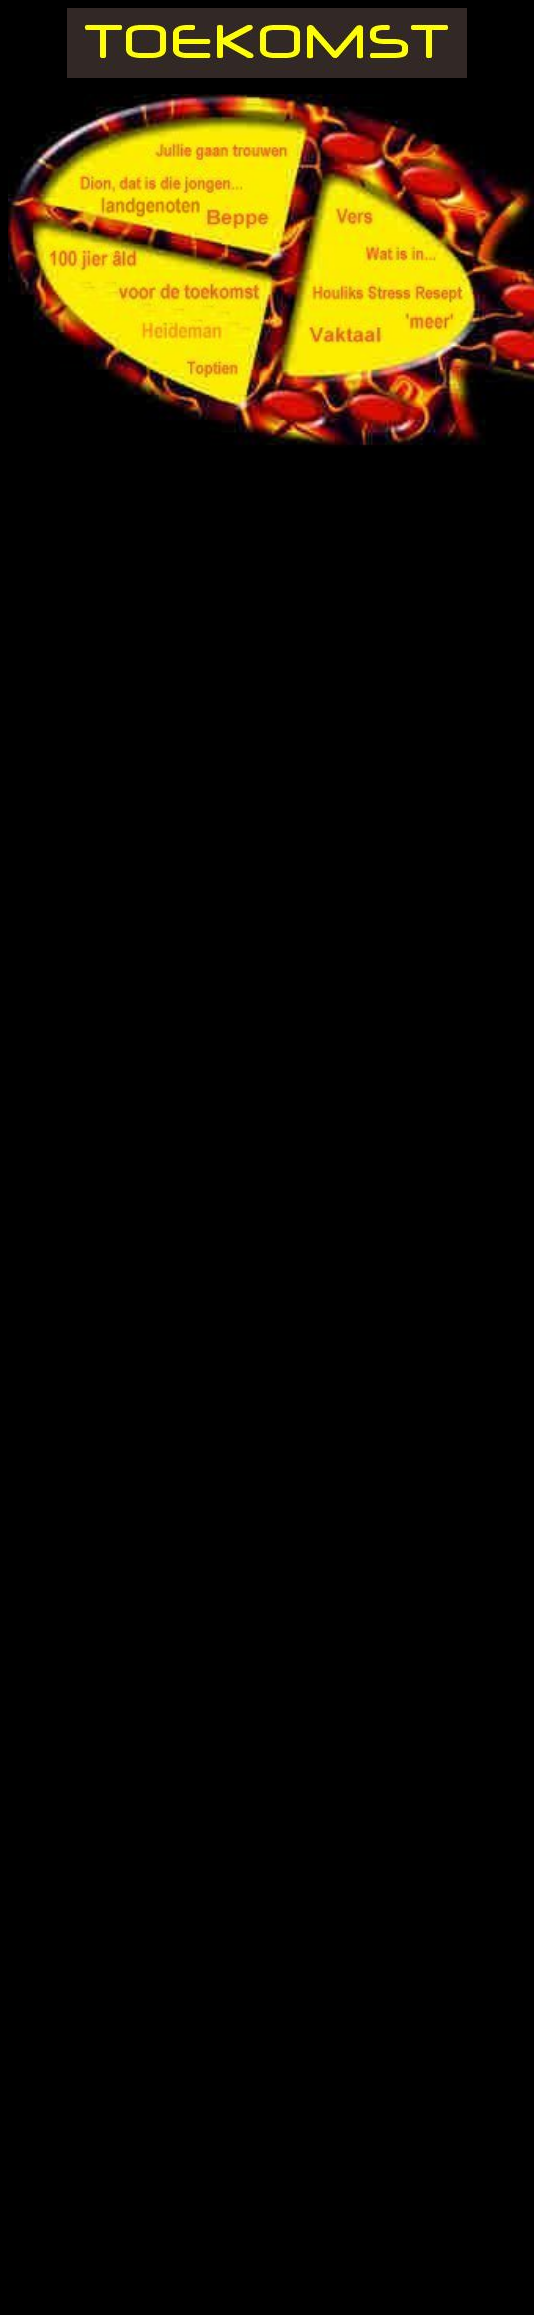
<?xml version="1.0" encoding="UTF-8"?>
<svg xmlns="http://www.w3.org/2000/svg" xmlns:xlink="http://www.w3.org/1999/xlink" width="534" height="2315">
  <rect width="100%" height="100%" fill="#000000" />
  <image x="67" y="8" width="400" height="70" xlink:href="image1.png" />
  <image x="8" y="94" width="526" height="354" xlink:href="image2.png" />
</svg>
